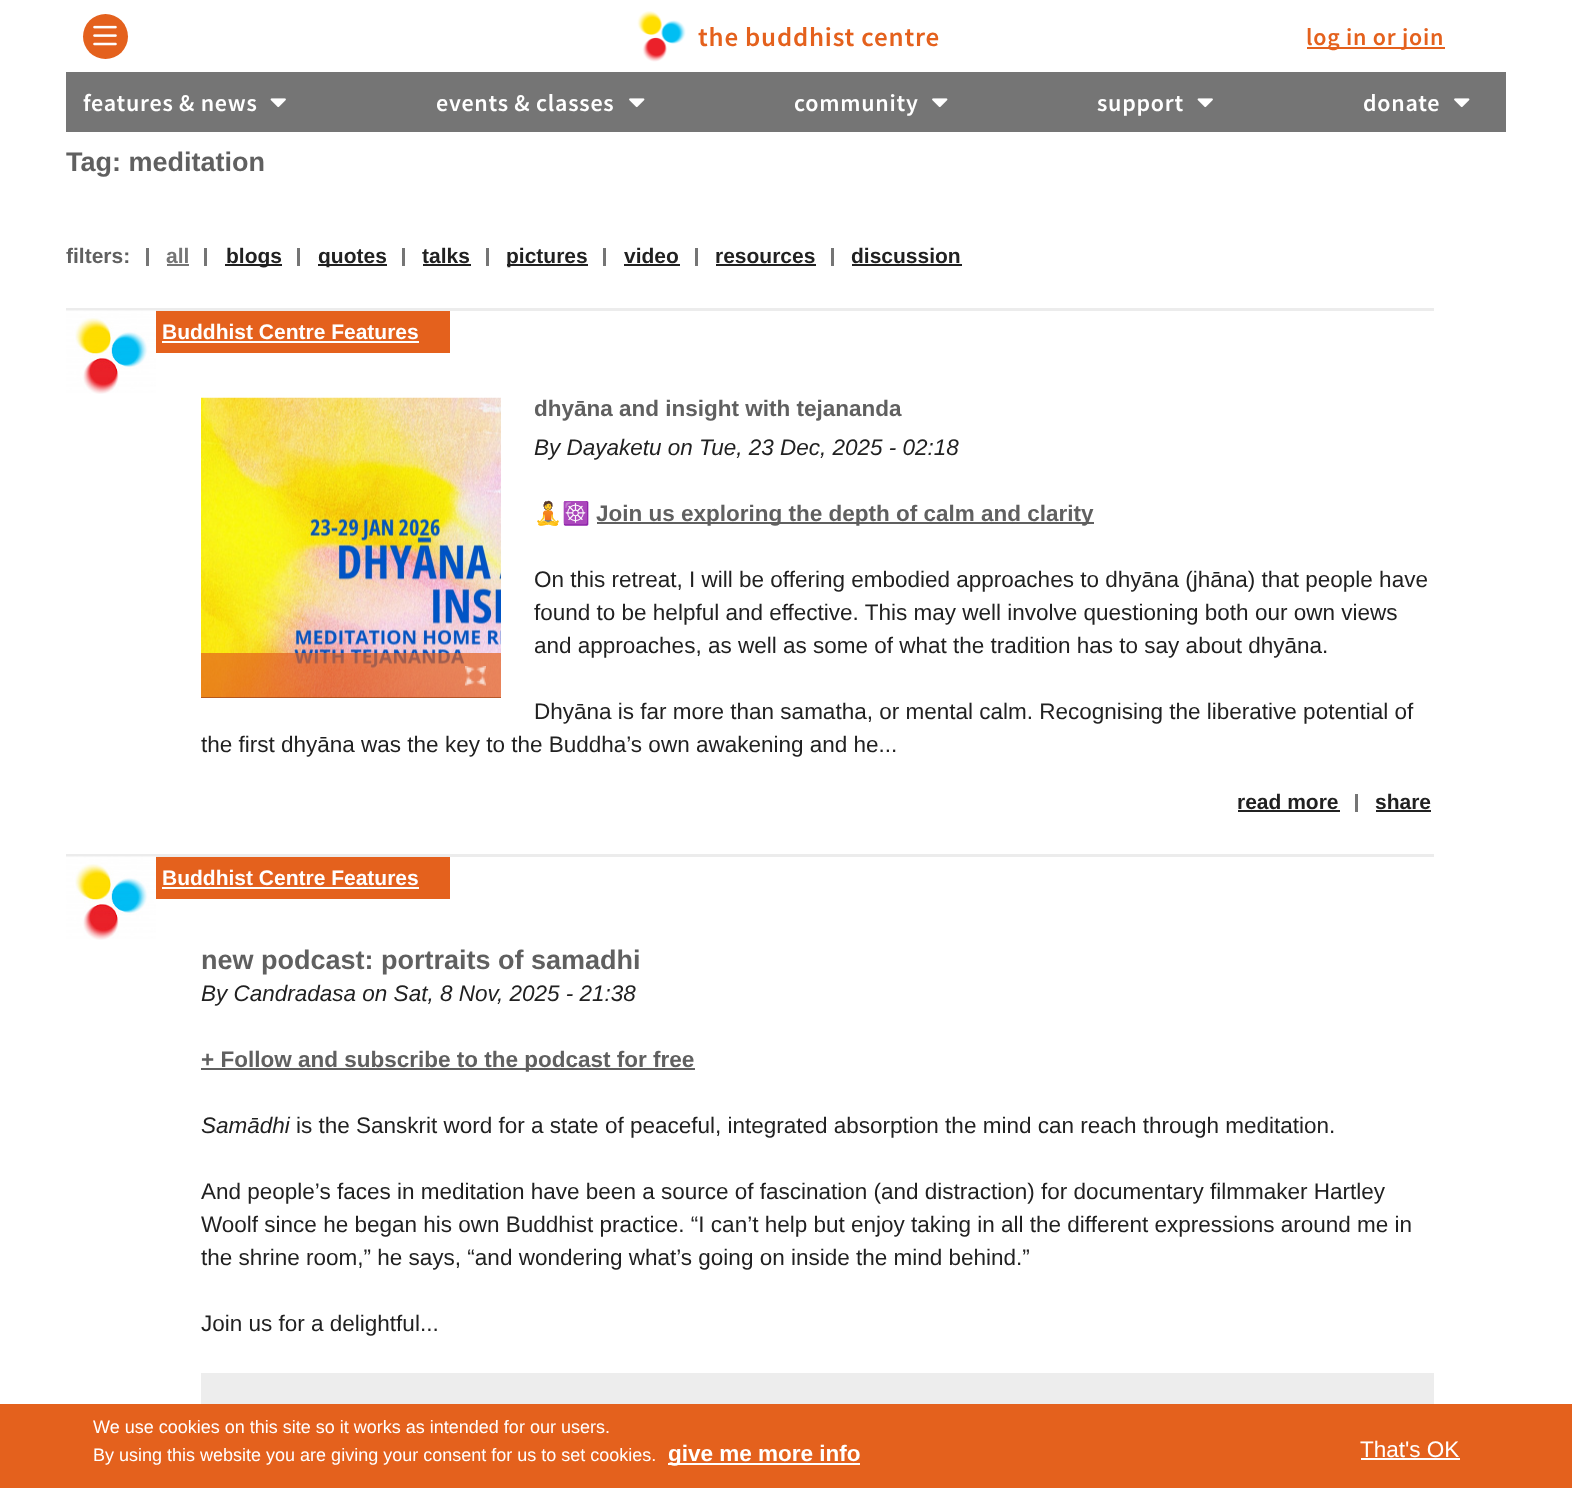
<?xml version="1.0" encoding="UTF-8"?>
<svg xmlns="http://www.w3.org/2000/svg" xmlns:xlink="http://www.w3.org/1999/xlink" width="1572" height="1488">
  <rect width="100%" height="100%" fill="#ffffff" />
  <circle cx="105.5" cy="36.5" r="22.5" fill="#e4611d" />
  <image x="93" y="25" width="24" height="21" xlink:href="image1.png" />
  <image x="637" y="11" width="49" height="51" xlink:href="image2.png" />
  <rect x="1307" y="47" width="138" height="2" fill="#e4611d" />
  <rect x="66" y="72" width="1440" height="60" fill="#757575" />
  <image x="270" y="98" width="16" height="10" xlink:href="image3.png" />
  <image x="629" y="98" width="16" height="10" xlink:href="image4.png" />
  <image x="932" y="98" width="16" height="10" xlink:href="image4.png" />
  <image x="1197" y="98" width="16" height="10" xlink:href="image3.png" />
  <image x="1454" y="98" width="16" height="10" xlink:href="image4.png" />
  <rect x="146" y="248" width="3" height="18" fill="#757575" />
  <rect x="167" y="264" width="22" height="2" fill="#757575" />
  <rect x="204" y="248" width="3" height="18" fill="#757575" />
  <rect x="225" y="264" width="57" height="2" fill="#212121" />
  <rect x="297" y="248" width="3" height="18" fill="#757575" />
  <rect x="318" y="264" width="69" height="2" fill="#212121" />
  <rect x="402" y="248" width="3" height="18" fill="#757575" />
  <rect x="423" y="264" width="48" height="2" fill="#212121" />
  <rect x="486" y="248" width="3" height="18" fill="#757575" />
  <rect x="507" y="264" width="81" height="2" fill="#212121" />
  <rect x="603" y="248" width="3" height="18" fill="#757575" />
  <rect x="624" y="264" width="56" height="2" fill="#212121" />
  <rect x="695" y="248" width="3" height="18" fill="#757575" />
  <rect x="716" y="264" width="100" height="2" fill="#212121" />
  <rect x="831" y="248" width="3" height="18" fill="#757575" />
  <rect x="852" y="264" width="110" height="2" fill="#212121" />
  <rect x="66" y="308" width="1368" height="3" fill="#ececec" />
  <image x="66" y="310" width="90" height="84" xlink:href="image5.png" />
  <rect x="156" y="311" width="294" height="42" fill="#e4611d" />
  <rect x="162" y="341" width="257" height="2" fill="#ffffff" />
  <rect x="201" y="697" width="300" height="1" fill="#151515" />
  <image x="201" y="397" width="300" height="301" xlink:href="image6.png" />
  <rect x="201" y="653" width="300" height="45" fill="#e4611d" fill-opacity="0.7" />
  <image x="465" y="666" width="21" height="20" xlink:href="image7.png" />
  <rect x="597" y="522" width="497" height="2" fill="#606060" />
  <rect x="1238" y="810" width="102" height="2" fill="#212121" />
  <rect x="1355" y="794" width="3" height="18" fill="#757575" />
  <rect x="1376" y="810" width="55" height="2" fill="#212121" />
  <rect x="66" y="854" width="1368" height="3" fill="#ececec" />
  <image x="66" y="856" width="90" height="84" xlink:href="image8.png" />
  <rect x="156" y="857" width="294" height="42" fill="#e4611d" />
  <rect x="162" y="887" width="257" height="2" fill="#ffffff" />
  <rect x="201" y="1068" width="494" height="2" fill="#606060" />
  <rect x="201" y="1373" width="1233" height="31" fill="#ededed" />
  <rect y="1404" width="1572" height="84" fill="#e4611d" />
  <rect x="668" y="1463" width="192" height="2" fill="#ffffff" />
  <rect x="1361" y="1458" width="99" height="2" fill="#ffffff" />
  <text x="698" y="46" style="font-family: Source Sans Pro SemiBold; font-size: 27px; font-weight: 600; letter-spacing: 0.8px; fill: #e4611d">the buddhist centre</text>
  <text x="1306" y="45" style="font-family: Source Sans Pro SemiBold; font-size: 24px; font-weight: 600; letter-spacing: 0.75px; fill: #e4611d">log in or join</text>
  <text x="83" y="111" style="font-family: Source Sans Pro SemiBold; font-size: 24px; font-weight: 600; letter-spacing: 0.75px; fill: #ffffff">features &amp; news</text>
  <text x="436" y="111" style="font-family: Source Sans Pro SemiBold; font-size: 24px; font-weight: 600; letter-spacing: 0.75px; fill: #ffffff">events &amp; classes</text>
  <text x="794" y="111" style="font-family: Source Sans Pro SemiBold; font-size: 24px; font-weight: 600; letter-spacing: 0.75px; fill: #ffffff">community</text>
  <text x="1097" y="111" style="font-family: Source Sans Pro SemiBold; font-size: 24px; font-weight: 600; letter-spacing: 0.75px; fill: #ffffff">support</text>
  <text x="1363" y="111" style="font-family: Source Sans Pro SemiBold; font-size: 24px; font-weight: 600; letter-spacing: 0.75px; fill: #ffffff">donate</text>
  <text x="66" y="171" style="font-family: Liberation Sans; font-size: 27px; font-weight: bold; fill: #606060">Tag: meditation</text>
  <text x="66" y="263" style="font-family: Liberation Sans; font-size: 21px; font-weight: bold; fill: #606060">filters:</text>
  <text x="166" y="263" style="font-family: Liberation Sans; font-size: 21px; font-weight: bold; fill: #757575">all</text>
  <text x="226" y="263" style="font-family: Liberation Sans; font-size: 21px; font-weight: bold; fill: #212121">blogs</text>
  <text x="318" y="263" style="font-family: Liberation Sans; font-size: 21px; font-weight: bold; fill: #212121">quotes</text>
  <text x="422" y="263" style="font-family: Liberation Sans; font-size: 21px; font-weight: bold; fill: #212121">talks</text>
  <text x="506" y="263" style="font-family: Liberation Sans; font-size: 21px; font-weight: bold; fill: #212121">pictures</text>
  <text x="624" y="263" style="font-family: Liberation Sans; font-size: 21px; font-weight: bold; fill: #212121">video</text>
  <text x="715" y="263" style="font-family: Liberation Sans; font-size: 21px; font-weight: bold; fill: #212121">resources</text>
  <text x="851" y="263" style="font-family: Liberation Sans; font-size: 21px; font-weight: bold; fill: #212121">discussion</text>
  <text x="162" y="339" style="font-family: Liberation Sans; font-size: 21px; font-weight: bold; fill: #ffffff">Buddhist Centre Features</text>
  <text x="534" y="416" style="font-family: Liberation Sans; font-size: 22.5px; font-weight: bold; fill: #606060">dhyāna and insight with tejananda</text>
  <text x="534" y="455" style="font-family: Liberation Sans; font-size: 22.5px; font-style: italic; fill: #212121">By Dayaketu on Tue, 23 Dec, 2025 - 02:18</text>
  <text x="534" y="521" style="font-family: Noto Color Emoji; font-size: 22.5px; fill: #212121">🧘☸️</text>
  <text x="596" y="521" style="font-family: Liberation Sans; font-size: 22.5px; font-weight: bold; fill: #606060">Join us exploring the depth of calm and clarity</text>
  <text x="534" y="587" style="font-family: Liberation Sans; font-size: 22.5px; fill: #212121">On this retreat, I will be offering embodied approaches to dhyāna (jhāna) that people have</text>
  <text x="534" y="620" style="font-family: Liberation Sans; font-size: 22.5px; fill: #212121">found to be helpful and effective. This may well involve questioning both our own views</text>
  <text x="534" y="653" style="font-family: Liberation Sans; font-size: 22.5px; fill: #212121">and approaches, as well as some of what the tradition has to say about dhyāna.</text>
  <text x="534" y="719" style="font-family: Liberation Sans; font-size: 22.5px; fill: #212121">Dhyāna is far more than samatha, or mental calm. Recognising the liberative potential of</text>
  <text x="201" y="752" style="font-family: Liberation Sans; font-size: 22.5px; fill: #212121">the first dhyāna was the key to the Buddha’s own awakening and he...</text>
  <text x="1237" y="809" style="font-family: Liberation Sans; font-size: 21px; font-weight: bold; fill: #212121">read more</text>
  <text x="1375" y="809" style="font-family: Liberation Sans; font-size: 21px; font-weight: bold; fill: #212121">share</text>
  <text x="162" y="885" style="font-family: Liberation Sans; font-size: 21px; font-weight: bold; fill: #ffffff">Buddhist Centre Features</text>
  <text x="201" y="969" style="font-family: Liberation Sans; font-size: 27px; font-weight: bold; fill: #606060">new podcast: portraits of samadhi</text>
  <text x="201" y="1001" style="font-family: Liberation Sans; font-size: 22.5px; font-style: italic; fill: #212121">By Candradasa on Sat, 8 Nov, 2025 - 21:38</text>
  <text x="201" y="1067" style="font-family: Liberation Sans; font-size: 22.5px; font-weight: bold; fill: #606060">+ Follow and subscribe to the podcast for free</text>
  <text x="201" y="1133" style="font-family: Liberation Sans; font-size: 22.5px; font-style: italic; fill: #212121">Samādhi</text>
  <text x="296" y="1133" style="font-family: Liberation Sans; font-size: 22.5px; fill: #212121">is the Sanskrit word for a state of peaceful, integrated absorption the mind can reach through meditation.</text>
  <text x="201" y="1199" style="font-family: Liberation Sans; font-size: 22.5px; fill: #212121">And people’s faces in meditation have been a source of fascination (and distraction) for documentary filmmaker Hartley</text>
  <text x="201" y="1232" style="font-family: Liberation Sans; font-size: 22.5px; fill: #212121">Woolf since he began his own Buddhist practice. “I can’t help but enjoy taking in all the different expressions around me in</text>
  <text x="201" y="1265" style="font-family: Liberation Sans; font-size: 22.5px; fill: #212121">the shrine room,” he says, “and wondering what’s going on inside the mind behind.”</text>
  <text x="201" y="1331" style="font-family: Liberation Sans; font-size: 22.5px; fill: #212121">Join us for a delightful...</text>
  <text x="93" y="1433" style="font-family: Liberation Sans; font-size: 18px; fill: #ffffff">We use cookies on this site so it works as intended for our users.</text>
  <text x="93" y="1461" style="font-family: Liberation Sans; font-size: 18px; fill: #ffffff">By using this website you are giving your consent for us to set cookies.</text>
  <text x="668" y="1461" style="font-family: Liberation Sans; font-size: 22.5px; font-weight: bold; fill: #ffffff">give me more info</text>
  <text x="1360" y="1457" style="font-family: Liberation Sans; font-size: 22.5px; fill: #ffffff">That's OK</text>
</svg>
